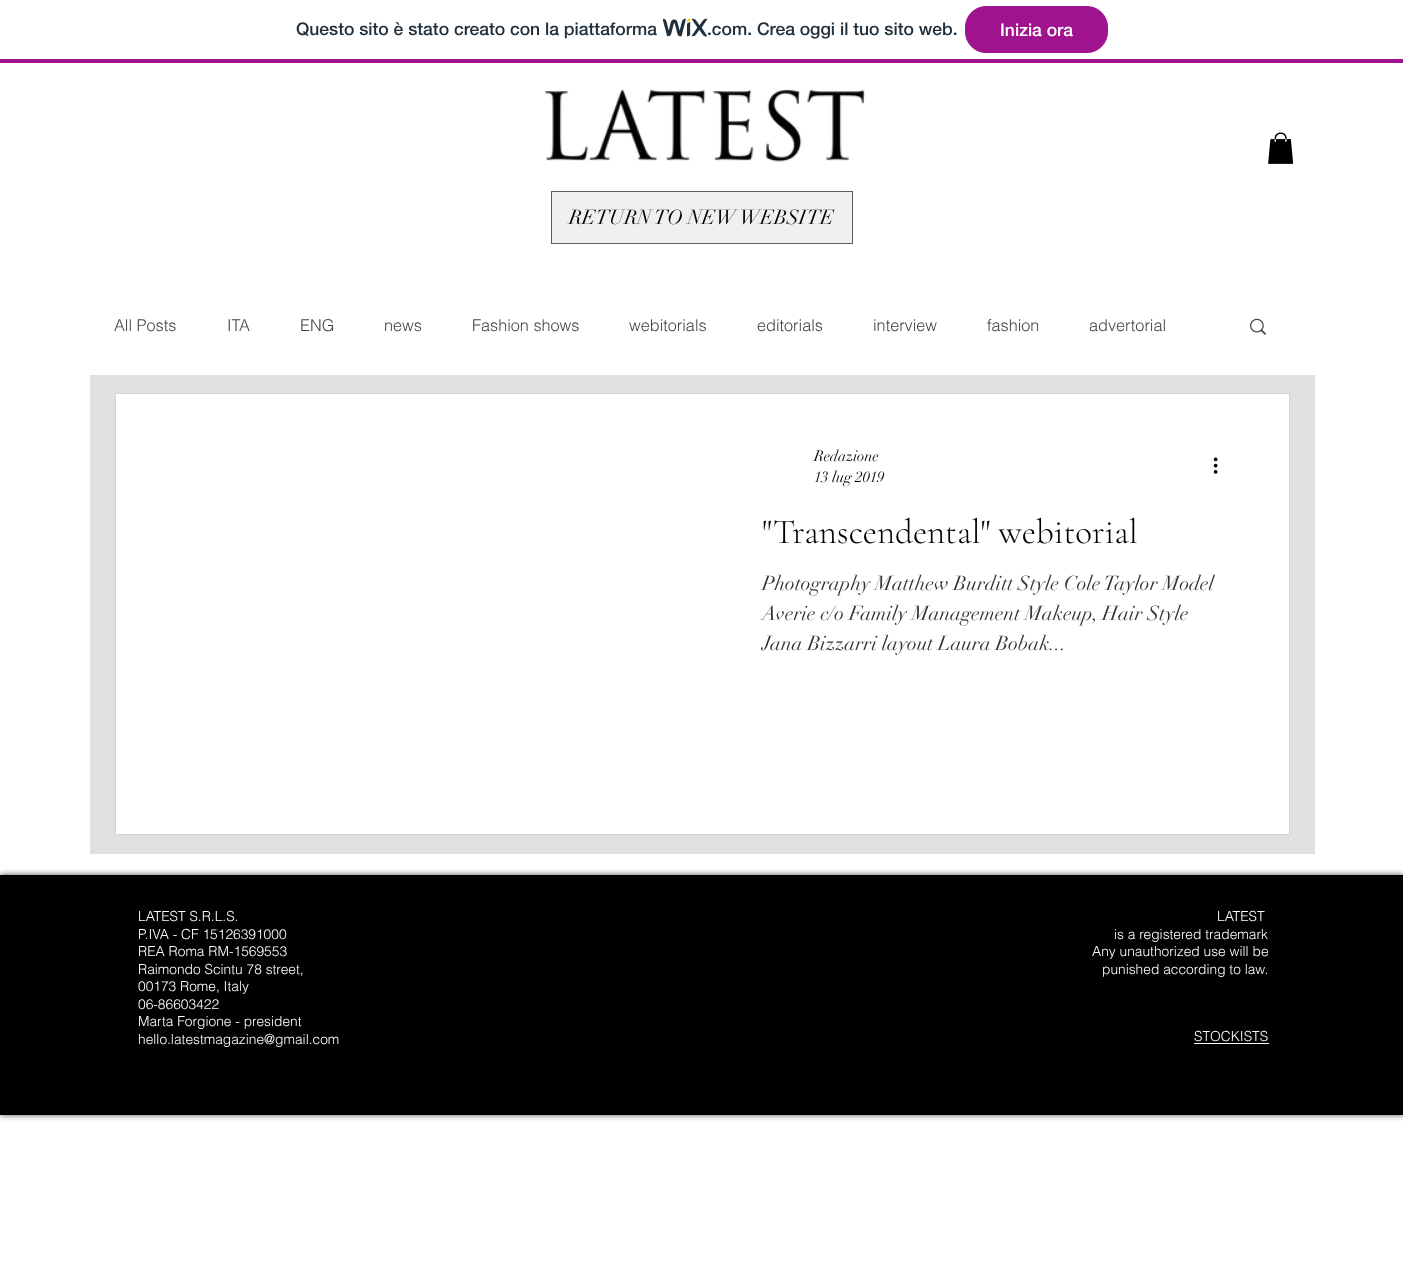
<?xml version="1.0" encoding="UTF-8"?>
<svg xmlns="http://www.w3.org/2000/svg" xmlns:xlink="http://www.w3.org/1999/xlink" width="1403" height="1279">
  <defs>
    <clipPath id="clip1"><rect x="761" y="569" width="468" height="215" /></clipPath>
  </defs>
  <rect width="100%" height="100%" fill="#ffffff" />
  <rect y="59" width="1403" height="4" fill="#a0138e" />
  <image x="663" y="18" width="45" height="19" xlink:href="image1.png" />
  <rect x="965.5" y="6.5" width="142" height="46" rx="20.5" fill="#a0138e" stroke="#a0138e" />
  <image x="545" y="89" width="320" height="73" xlink:href="image2.png" />
  <image x="1268" y="132" width="26" height="32" xlink:href="image3.png" />
  <rect x="551.5" y="191.5" width="301" height="52" fill="#efefef" stroke="#5f5e5d" />
  <rect x="90" y="375" width="1225" height="479" fill="#e0e0e0" />
  <image x="1250" y="318" width="17" height="17" xlink:href="image4.png" />
  <rect x="115.5" y="393.5" width="1174" height="441" fill="#ffffff" stroke="#d4d4d4" />
  <image x="1213" y="457" width="5" height="17" xlink:href="image5.png" />
  <rect y="875" width="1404" height="240" fill="#000000" fill-opacity="0.7" filter="blur(3px)" />
  <rect y="875" width="1403" height="240" fill="#000000" />
  <rect x="1194" y="1043" width="75" height="1" fill="#ffffff" />
  <text x="296" y="35" style="font-family: 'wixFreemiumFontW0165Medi'; font-size: 17.5px; font-weight: 500; fill: #20303c">Questo sito è stato creato con la piattaforma</text>
  <text x="707" y="35" style="font-family: 'wixFreemiumFontW0165Medi'; font-size: 17.5px; font-weight: 500; fill: #20303c">.com. Crea oggi il tuo sito web.</text>
  <text x="1000" y="36" style="font-family: 'wixFreemiumFontW0165Medi'; font-size: 17.5px; font-weight: 500; fill: #ffffff">Inizia ora</text>
  <text x="569" y="224" style="font-family: didot; font-size: 20px; fill: #000000">RETURN TO NEW WEBSITE</text>
  <text x="114" y="331" style="font-family: helvetica; font-size: 16.25px; font-weight: 300; fill: #454545">All Posts</text>
  <text x="227" y="331" style="font-family: helvetica; font-size: 16.25px; font-weight: 300; fill: #454545">ITA</text>
  <text x="300" y="331" style="font-family: helvetica; font-size: 16.25px; font-weight: 300; fill: #454545">ENG</text>
  <text x="384" y="331" style="font-family: helvetica; font-size: 16.25px; font-weight: 300; fill: #454545">news</text>
  <text x="472" y="331" style="font-family: helvetica; font-size: 16.25px; font-weight: 300; fill: #454545">Fashion shows</text>
  <text x="629" y="331" style="font-family: helvetica; font-size: 16.25px; font-weight: 300; fill: #454545">webitorials</text>
  <text x="757" y="331" style="font-family: helvetica; font-size: 16.25px; font-weight: 300; fill: #454545">editorials</text>
  <text x="873" y="331" style="font-family: helvetica; font-size: 16.25px; font-weight: 300; fill: #454545">interview</text>
  <text x="987" y="331" style="font-family: helvetica; font-size: 16.25px; font-weight: 300; fill: #454545">fashion</text>
  <text x="1089" y="331" style="font-family: helvetica; font-size: 16.25px; font-weight: 300; fill: #454545">advertorial</text>
  <text x="814" y="461" style="font-family: didot; font-size: 15px; fill: #000000">Redazione</text>
  <text x="814" y="482" style="font-family: didot; font-size: 15px; fill: #000000">13 lug 2019</text>
  <text x="762" y="543" style="font-family: Cormorant Garamond; font-size: 35px; font-weight: 300; fill: #000000">"Transcendental" webitorial</text>
  <text x="762" y="590" style="font-family: didot; font-size: 20px; fill: #333333">Photography Matthew Burditt Style Cole Taylor Model</text>
  <text x="762" y="620" style="font-family: didot; font-size: 20px; fill: #333333">Averie c/o Family Management Makeup, Hair Style</text>
  <g clip-path="url(#clip1)">
    <text x="762" y="650" style="font-family: didot; font-size: 20px; fill: #333333">Jana Bizzarri layout Laura Bobak...</text>
  </g>
  <text x="138" y="921" style="font-family: helvetica; font-size: 13.75px; font-weight: 300; fill: #ffffff">LATEST S.R.L.S.</text>
  <text x="138" y="939" style="font-family: helvetica; font-size: 13.75px; font-weight: 300; fill: #ffffff">P.IVA - CF 15126391000</text>
  <text x="138" y="956" style="font-family: helvetica; font-size: 13.75px; font-weight: 300; fill: #ffffff">REA Roma RM-1569553</text>
  <text x="138" y="974" style="font-family: helvetica; font-size: 13.75px; font-weight: 300; fill: #ffffff">Raimondo Scintu 78 street,</text>
  <text x="138" y="991" style="font-family: helvetica; font-size: 13.75px; font-weight: 300; fill: #ffffff">00173 Rome, Italy</text>
  <text x="138" y="1009" style="font-family: helvetica; font-size: 13.75px; font-weight: 300; fill: #ffffff">06-86603422</text>
  <text x="138" y="1026" style="font-family: helvetica; font-size: 13.75px; font-weight: 300; fill: #ffffff">Marta Forgione - president</text>
  <text x="138" y="1044" style="font-family: helvetica; font-size: 13.75px; font-weight: 300; fill: #ffffff">hello.latestmagazine@gmail.com</text>
  <text x="1217" y="921" style="font-family: helvetica; font-size: 13.75px; font-weight: 300; fill: #ffffff">LATEST</text>
  <text x="1114" y="939" style="font-family: helvetica; font-size: 13.75px; font-weight: 300; fill: #ffffff">is a registered trademark</text>
  <text x="1092" y="956" style="font-family: helvetica; font-size: 13.75px; font-weight: 300; fill: #ffffff">Any unauthorized use will be</text>
  <text x="1102" y="974" style="font-family: helvetica; font-size: 13.75px; font-weight: 300; fill: #ffffff">punished according to law.</text>
  <text x="1194" y="1041" style="font-family: helvetica; font-size: 13.75px; font-weight: 300; fill: #ffffff">STOCKISTS</text>
</svg>
